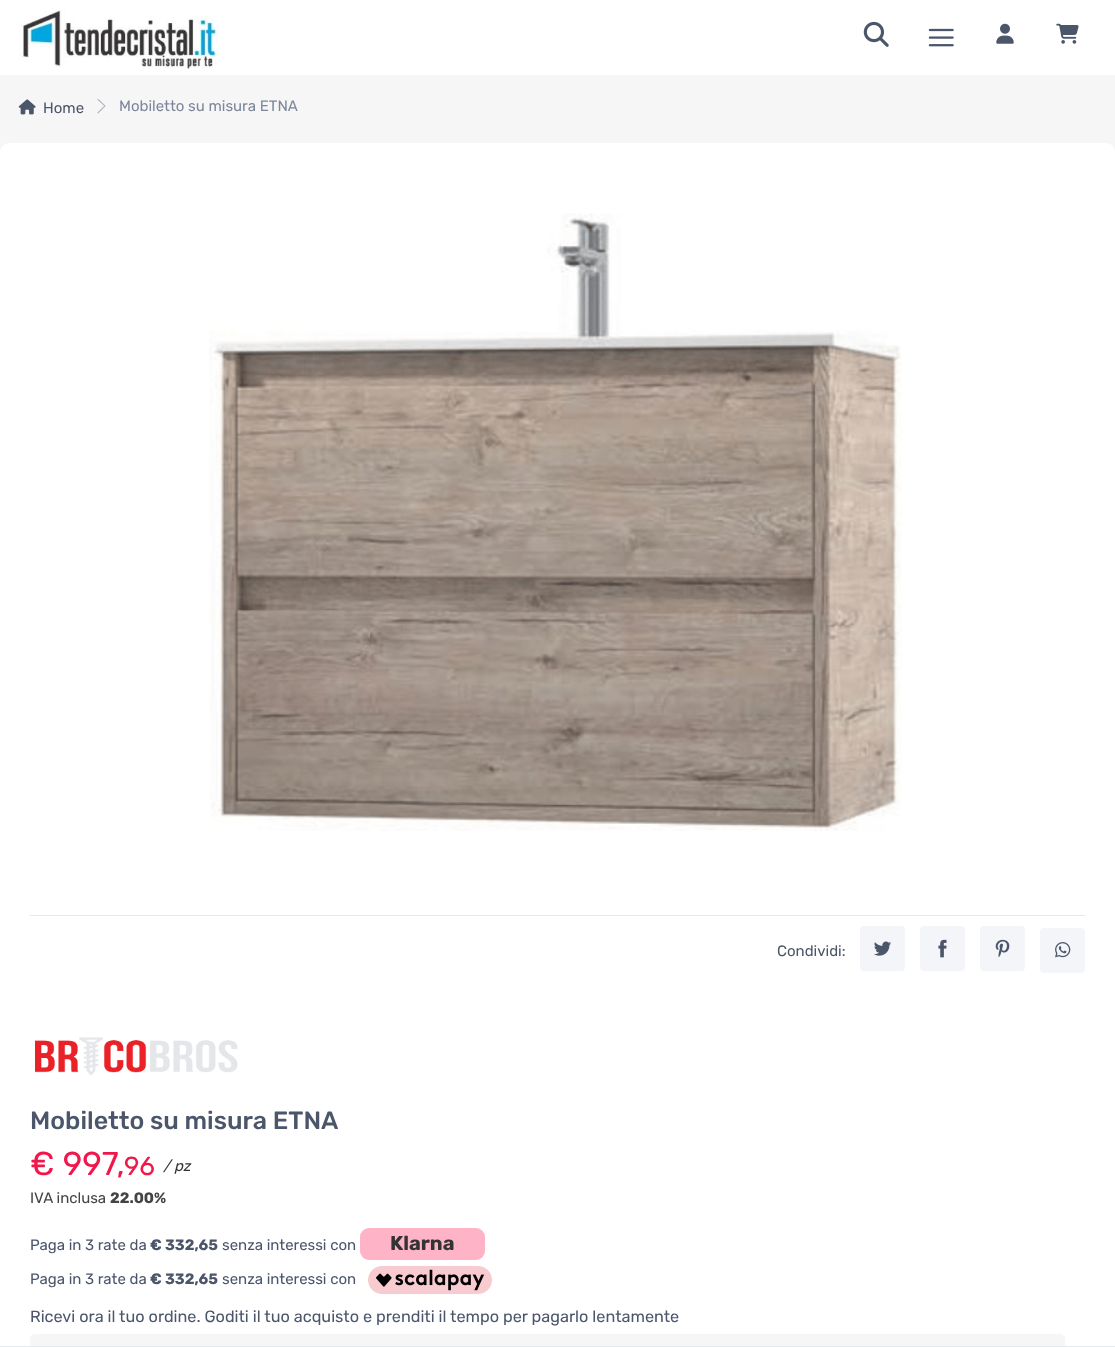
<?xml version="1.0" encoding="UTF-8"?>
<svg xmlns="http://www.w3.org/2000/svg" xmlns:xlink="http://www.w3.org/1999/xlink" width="1115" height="1347">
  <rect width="100%" height="100%" fill="#ffffff" />
  <image x="19" y="10" width="200" height="59" xlink:href="image1.png" />
  <image x="863" y="21" width="26" height="26" xlink:href="image2.png" />
  <image x="928" y="28" width="26" height="19" xlink:href="image3.png" />
  <image x="996" y="23" width="18" height="21" xlink:href="image4.png" />
  <image x="1056" y="23" width="23" height="21" xlink:href="image5.png" />
  <rect y="75" width="1115" height="77" fill="#f6f6f6" />
  <image x="18" y="99" width="18" height="16" xlink:href="image6.png" />
  <image x="97" y="99" width="9" height="15" xlink:href="image7.png" />
  <rect y="143" width="1115" height="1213" rx="9" fill="#ffffff" />
  <image x="209" y="213" width="693" height="618" xlink:href="image8.png" />
  <rect x="30" y="915" width="1055" height="1" fill="#e3e9ef" />
  <rect x="860" y="926" width="45" height="45" rx="4" fill="#f3f5f9" />
  <image x="874" y="941" width="18" height="15" xlink:href="image9.png" />
  <rect x="920" y="926" width="45" height="45" rx="4" fill="#f3f5f9" />
  <image x="938" y="939" width="9" height="19" xlink:href="image10.png" />
  <rect x="980" y="926" width="45" height="45" rx="4" fill="#f3f5f9" />
  <image x="995" y="939" width="15" height="19" xlink:href="image11.png" />
  <rect x="1040" y="928" width="45" height="45" rx="4" fill="#f3f5f9" />
  <image x="1055" y="942" width="16" height="16" xlink:href="image12.png" />
  <image x="35" y="1037" width="203" height="38" xlink:href="image13.png" />
  <rect x="360" y="1228" width="125" height="32" rx="9" fill="#ffb3c7" />
  <image x="368" y="1266" width="124" height="28" xlink:href="image14.png" />
  <rect x="30" y="1334" width="1035" height="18" rx="5" fill="#f6f6f6" />
  <rect y="1346" width="1115" height="1" fill="#e3e9ef" />
  <text x="43" y="113" style="font-family: Rubik; font-size: 15px; fill: #4b566b">Home</text>
  <text x="119" y="111" style="font-family: Rubik; font-size: 15px; fill: #7d879c">Mobiletto su misura ETNA</text>
  <text x="777" y="956" style="font-family: Rubik; font-size: 15px; fill: #4b566b">Condividi:</text>
  <text x="30" y="1129" style="font-family: Rubik; font-size: 25px; font-weight: 500; fill: #4b566b">Mobiletto su misura ETNA</text>
  <text x="30" y="1175" style="font-family: Rubik; font-size: 33px; fill: #f0174b">€ 997,</text>
  <text x="124" y="1175" style="font-family: Rubik; font-size: 26px; fill: #f0174b">96</text>
  <text x="163" y="1171" style="font-family: Rubik; font-size: 15px; font-style: italic; fill: #333333">/ pz</text>
  <text x="30" y="1203" style="font-family: Rubik; font-size: 15px; fill: #444444">IVA inclusa</text>
  <text x="110" y="1203" style="font-family: Rubik; font-size: 15px; font-weight: bold; fill: #444444">22.00%</text>
  <text x="30" y="1250" style="font-family: Rubik; font-size: 15px; fill: #4b566b">Paga in 3 rate da</text>
  <text x="150" y="1250" style="font-family: Rubik; font-size: 15px; font-weight: bold; fill: #4b566b">€ 332,65</text>
  <text x="222" y="1250" style="font-family: Rubik; font-size: 15px; fill: #4b566b">senza interessi con</text>
  <text x="390" y="1250" style="font-family: Rubik; font-size: 20px; font-weight: bold; fill: #333333">Klarna</text>
  <text x="30" y="1284" style="font-family: Rubik; font-size: 15px; fill: #4b566b">Paga in 3 rate da</text>
  <text x="150" y="1284" style="font-family: Rubik; font-size: 15px; font-weight: bold; fill: #4b566b">€ 332,65</text>
  <text x="222" y="1284" style="font-family: Rubik; font-size: 15px; fill: #4b566b">senza interessi con</text>
  <text x="30" y="1322" style="font-family: Rubik; font-size: 16.25px; fill: #4b566b">Ricevi ora il tuo ordine. Goditi il tuo acquisto e prenditi il tempo per pagarlo lentamente</text>
</svg>
